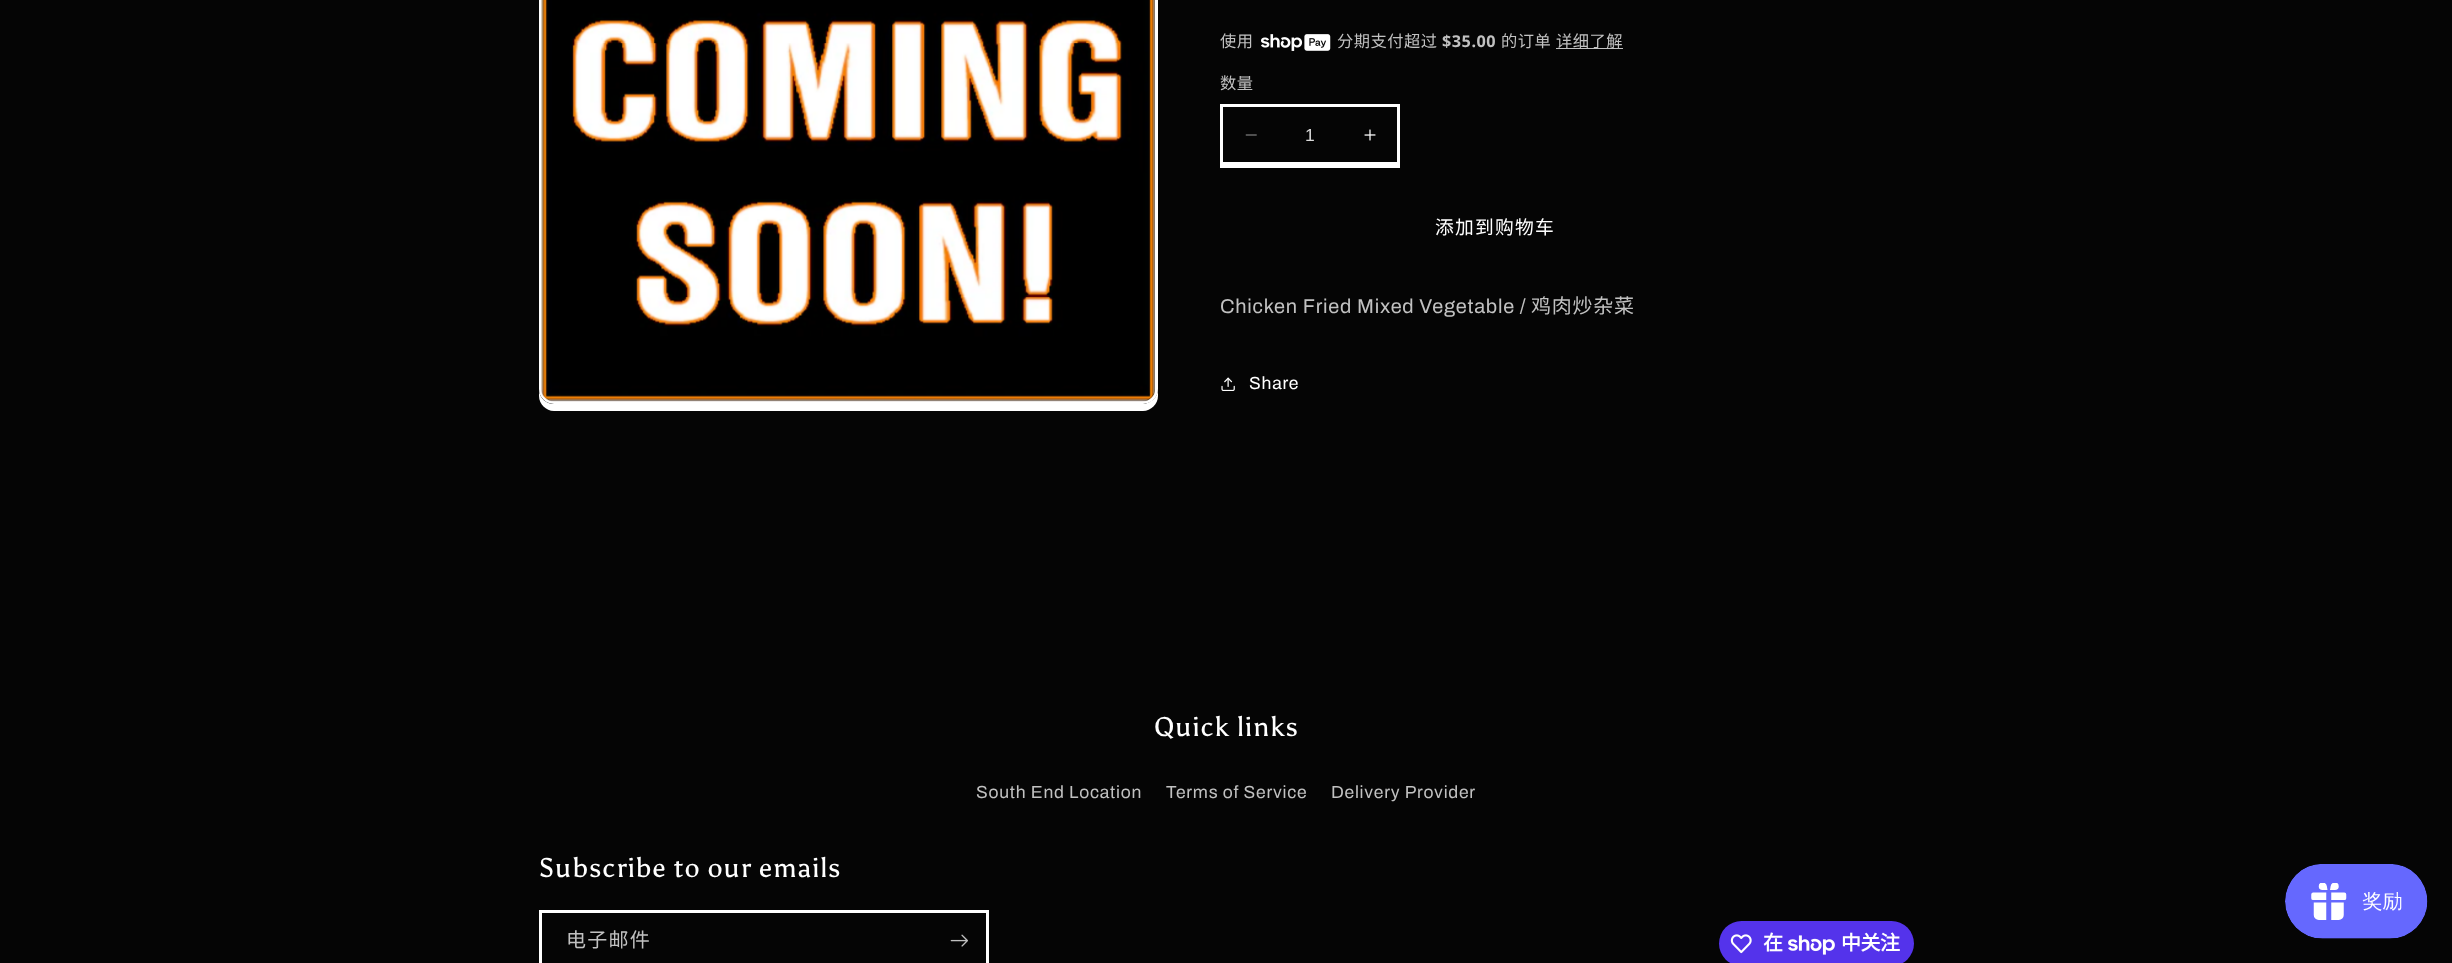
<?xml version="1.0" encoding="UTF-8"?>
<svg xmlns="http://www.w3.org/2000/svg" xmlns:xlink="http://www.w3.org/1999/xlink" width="2452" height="963">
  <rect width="100%" height="100%" fill="#050505" />
  <path d="M 539 391 v 5 c 0 8 7 15 15 15 h 589 c 8 0 15 -7 15 -15 v -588 v -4 v 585 c 0 8 -7 15 -16 15 h -588 c -8 0 -14 -6 -15 -13 z" fill="#ffffff" />
  <rect x="540.5" y="-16.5" width="616" height="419" rx="13.5" fill="#050505" stroke="#ffffff" stroke-width="3" />
  <image x="541" y="0" width="614" height="402" xlink:href="image1.png" />
  <image x="1261" y="34" width="70" height="17" xlink:href="image2.png" />
  <rect x="1556" y="48" width="67" height="1" fill="#c1c1c1" />
  <image x="1245" y="134" width="12" height="2" xlink:href="image3.png" />
  <image x="1364" y="129" width="12" height="12" xlink:href="image4.png" />
  <rect x="1221.5" y="105.5" width="177" height="58" fill="none" stroke="#ffffff" stroke-width="3" />
  <rect x="1220" y="165" width="180" height="3" fill="#ffffff" />
  <image x="1221" y="377" width="14" height="14" xlink:href="image5.png" />
  <rect x="540.5" y="911.5" width="447" height="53" fill="none" stroke="#ffffff" stroke-width="3" />
  <image x="950" y="934" width="18" height="13" xlink:href="image6.png" />
  <rect x="1719" y="921" width="195" height="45" rx="22.5" fill="#5433eb" />
  <image x="1730" y="934" width="22" height="20" xlink:href="image7.png" />
  <image x="1788" y="935" width="47" height="20" xlink:href="image8.png" />
  <image x="2285" y="864" width="143" height="75" xlink:href="image9.png" />
  <text x="1220" y="47" style="font-family: Noto Sans CJK SC; font-size: 16.25px; letter-spacing: 0.5px; fill: #c1c1c1">使用</text>
  <text x="1337" y="47" style="font-family: Noto Sans CJK SC; font-size: 16.25px; letter-spacing: 0.5px; fill: #c1c1c1">分期支付超过</text>
  <text x="1442" y="47" style="font-family: Noto Sans; font-size: 16.25px; font-weight: bold; letter-spacing: 0.5px; fill: #c1c1c1">$35.00</text>
  <text x="1501" y="47" style="font-family: Noto Sans CJK SC; font-size: 16.25px; letter-spacing: 0.5px; fill: #c1c1c1">的订单</text>
  <text x="1556" y="47" style="font-family: Noto Sans CJK SC; font-size: 16.25px; letter-spacing: 0.5px; fill: #c1c1c1">详细了解</text>
  <text x="1220" y="89" style="font-family: Noto Sans CJK SC; font-size: 16.25px; letter-spacing: 0.5px; fill: #c1c1c1">数量</text>
  <text x="1305" y="141" style="font-family: Liberation Sans; font-size: 17.5px; fill: #dadada">1</text>
  <text x="1435" y="234" style="font-family: Noto Sans CJK SC; font-size: 18.75px; letter-spacing: 1.25px; fill: #ffffff">添加到购物车</text>
  <text x="1220" y="313" style="font-family: Archivo; font-size: 20px; letter-spacing: 0.75px; fill: #c1c1c1">Chicken Fried Mixed Vegetable /</text>
  <text x="1531" y="313" style="font-family: Noto Sans CJK SC; font-size: 20px; letter-spacing: 0.75px; fill: #c1c1c1">鸡肉炒杂菜</text>
  <text x="1249" y="389" style="font-family: Archivo; font-size: 17.5px; letter-spacing: 0.75px; fill: #ffffff">Share</text>
  <text x="1154" y="736" style="font-family: Asul; font-size: 27px; letter-spacing: 0.9px; fill: #ffffff">Quick links</text>
  <text x="976" y="798" style="font-family: Archivo; font-size: 17.5px; letter-spacing: 0.75px; fill: #c1c1c1">South End Location</text>
  <text x="1166" y="798" style="font-family: Archivo; font-size: 17.5px; letter-spacing: 0.75px; fill: #c1c1c1">Terms of Service</text>
  <text x="1331" y="798" style="font-family: Archivo; font-size: 17.5px; letter-spacing: 0.75px; fill: #c1c1c1">Delivery Provider</text>
  <text x="539" y="877" style="font-family: Asul; font-size: 27px; letter-spacing: 0.9px; fill: #ffffff">Subscribe to our emails</text>
  <text x="566" y="947" style="font-family: Noto Sans CJK SC; font-size: 20px; letter-spacing: 1.25px; fill: #c1c1c1">电子邮件</text>
  <text x="1763" y="950" style="font-family: Noto Sans CJK SC; font-size: 20px; font-weight: bold; letter-spacing: -0.5px; fill: #ffffff">在</text>
  <text x="1841" y="950" style="font-family: Noto Sans CJK SC; font-size: 20px; font-weight: bold; letter-spacing: -0.5px; fill: #ffffff">中关注</text>
</svg>
